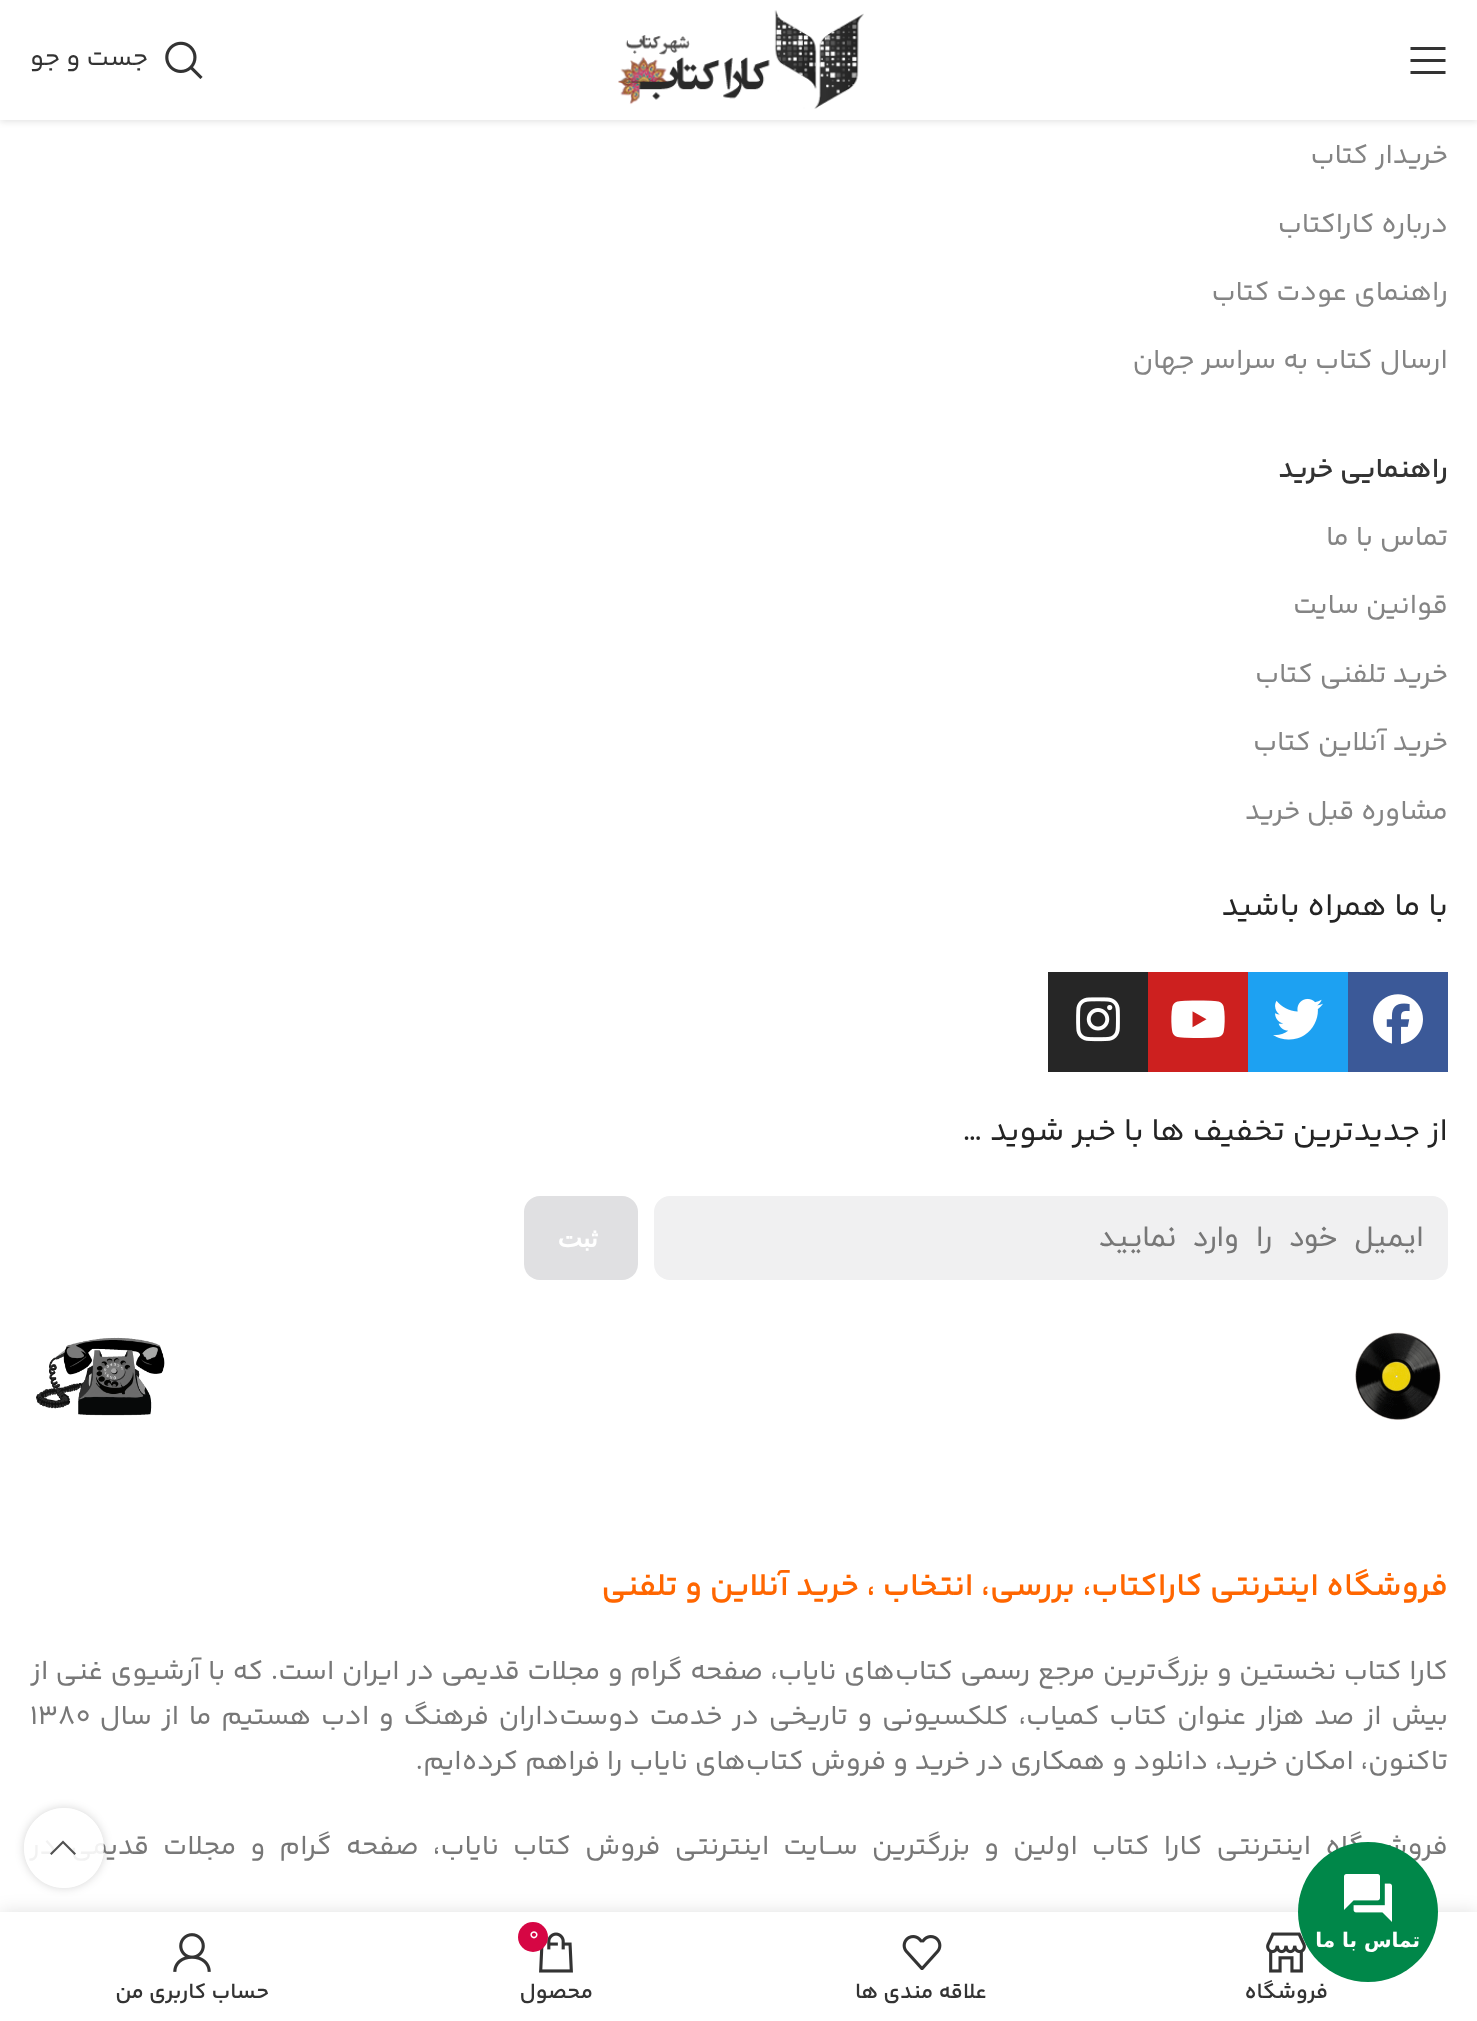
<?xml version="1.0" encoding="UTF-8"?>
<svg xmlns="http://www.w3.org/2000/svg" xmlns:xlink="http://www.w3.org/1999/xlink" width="1477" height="2021">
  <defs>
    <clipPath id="clip1"><path d="M 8 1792 h 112 v 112 h -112 z m 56 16 c 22 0 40 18 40 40 c 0 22 -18 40 -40 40 c -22 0 -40 -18 -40 -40 c 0 -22 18 -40 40 -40 z" clip-rule="evenodd" /></clipPath>
  </defs>
  <rect width="100%" height="100%" fill="#ffffff" />
  <rect y="2" width="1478" height="120" fill="#000000" fill-opacity="0.1" filter="blur(3px)" />
  <rect width="1477" height="120" fill="#ffffff" />
  <path d="M 1410.5 50 h 35 v -3 h -35 z m 0 12 h 35 v -3 h -35 z m 0 12 h 35 v -3 h -35 z" fill="#333333" />
  <image x="618" y="10" width="246" height="99" xlink:href="image1.png" />
  <image x="165" y="41" width="38" height="38" xlink:href="image2.png" />
  <rect x="1348" y="972" width="100" height="100" fill="#3b5998" />
  <image x="1373" y="994" width="50" height="50" xlink:href="image3.png" />
  <rect x="1248" y="972" width="100" height="100" fill="#1da1f2" />
  <image x="1273" y="998" width="50" height="42" xlink:href="image4.png" />
  <rect x="1148" y="972" width="100" height="100" fill="#cd201f" />
  <image x="1171" y="1000" width="54" height="38" xlink:href="image5.png" />
  <rect x="1048" y="972" width="100" height="100" fill="#262626" />
  <image x="1076" y="997" width="44" height="45" xlink:href="image6.png" />
  <rect x="654" y="1196" width="794" height="84" rx="16" fill="#f0f0f1" />
  <rect x="524" y="1196" width="114" height="84" rx="16" fill="#e0e0e2" />
  <image x="1355" y="1332" width="86" height="89" xlink:href="image7.png" />
  <image x="36" y="1337" width="129" height="79" xlink:href="image8.png" />
  <g clip-path="url(#clip1)">
    <rect x="24" y="1808" width="80" height="80" rx="40" fill="#000000" fill-opacity="0.17" filter="blur(5px)" />
  </g>
  <text x="148" y="65" style="font-family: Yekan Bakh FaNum; font-size: 26px; direction: rtl; fill: #333333">جست و جو</text>
  <text x="1448" y="163" style="font-family: Yekan Bakh FaNum; font-size: 28px; direction: rtl; fill: #848484">خریدار کتاب</text>
  <text x="1448" y="232" style="font-family: Yekan Bakh FaNum; font-size: 28px; direction: rtl; fill: #848484">درباره کاراکتاب</text>
  <text x="1448" y="300" style="font-family: Yekan Bakh FaNum; font-size: 28px; direction: rtl; fill: #848484">راهنمای عودت کتاب</text>
  <text x="1448" y="368" style="font-family: Yekan Bakh FaNum; font-size: 28px; direction: rtl; fill: #848484">ارسال کتاب به سراسر جهان</text>
  <text x="1448" y="477" style="font-family: Yekan Bakh FaNum; font-size: 28px; font-weight: 600; direction: rtl; fill: #333333">راهنمایی خرید</text>
  <text x="1448" y="545" style="font-family: Yekan Bakh FaNum; font-size: 28px; direction: rtl; fill: #848484">تماس با ما</text>
  <text x="1448" y="613" style="font-family: Yekan Bakh FaNum; font-size: 28px; direction: rtl; fill: #848484">قوانین سایت</text>
  <text x="1448" y="682" style="font-family: Yekan Bakh FaNum; font-size: 28px; direction: rtl; fill: #848484">خرید تلفنی کتاب</text>
  <text x="1448" y="750" style="font-family: Yekan Bakh FaNum; font-size: 28px; direction: rtl; fill: #848484">خرید آنلاین کتاب</text>
  <text x="1448" y="819" style="font-family: Yekan Bakh FaNum; font-size: 28px; direction: rtl; fill: #848484">مشاوره قبل خرید</text>
  <text x="1448" y="915" style="font-family: Yekan Bakh FaNum; font-size: 32px; direction: rtl; fill: #242424">با ما همراه باشید</text>
  <text x="1448" y="1140" style="font-family: Yekan Bakh FaNum; font-size: 32px; direction: rtl; fill: #242424">از جدیدترین تخفیف ها با خبر شوید …</text>
  <text x="1424" y="1246" word-spacing="8" style="font-family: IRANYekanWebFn; font-size: 30px; letter-spacing: -1.6px; direction: rtl; fill: #777777">ایمیل خود را وارد نمایید</text>
  <text x="598" y="1247" style="font-family: DejaVu Sans; font-size: 26px; font-weight: bold; direction: rtl; fill: #ffffff">ثبت</text>
  <text x="1448" y="1595" style="font-family: Yekan Bakh FaNum; font-size: 32px; font-weight: 600; direction: rtl; fill: #ff6600">فروشگاه اینترنتی کاراکتاب، بررسی، انتخاب ، خرید آنلاین و تلفنی</text>
  <text x="1448" y="1679" word-spacing="0.6" style="font-family: Yekan Bakh FaNum; font-size: 28px; direction: rtl; fill: #777777">کارا کتاب نخستین و بزرگ‌ترین مرجع رسمی کتاب‌های نایاب، صفحه گرام و مجلات قدیمی در ایران است. که با آرشیوی غنی از</text>
  <text x="1448" y="1724" word-spacing="2.9" style="font-family: Yekan Bakh FaNum; font-size: 28px; direction: rtl; fill: #777777">بیش از صد هزار عنوان کتاب کمیاب، کلکسیونی و تاریخی در خدمت دوست‌داران فرهنگ و ادب هستیم ما از سال</text>
  <text x="30" y="1724" style="font-family: Yekan Bakh FaNum; font-size: 28px; fill: #777777">۱۳۸۰</text>
  <text x="1448" y="1769" style="font-family: Yekan Bakh FaNum; font-size: 28px; direction: rtl; fill: #777777">تاکنون، امکان خرید، دانلود و همکاری در خرید و فروش کتاب‌های نایاب را فراهم کرده‌ایم.</text>
  <text x="1448" y="1854" word-spacing="7.25" style="font-family: Yekan Bakh FaNum; font-size: 28px; direction: rtl; fill: #777777">فروشــــگاه اینترنتی کارا کتاب اولین و بزرگترین ســایت اینترنتی فروش کتاب نایاب، صفحه گرام و مجلات قدیمی در</text>
  <circle cx="64" cy="1848" r="40" fill="#ffffff" fill-opacity="0.9" />
  <path d="M 74.5 1855 l 1.5 -1.5 l -13 -13 l -13 13 l 1.5 1.5 l 11.5 -11.5 z" fill="#515151" />
  <rect y="1912" width="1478" height="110" fill="#000000" fill-opacity="0.12" filter="blur(9px)" />
  <rect y="1912" width="1477" height="109" fill="#ffffff" />
  <image x="1266" y="1932" width="40" height="41" xlink:href="image10.png" />
  <text x="1328" y="1998" style="font-family: Yekan Bakh FaNum; font-size: 22px; font-weight: 600; direction: rtl; fill: #333333">فروشگاه</text>
  <circle cx="1368" cy="1912" r="70" fill="#008749" />
  <image x="1344" y="1874" width="48" height="48" xlink:href="image9.png" />
  <text x="1420" y="1947" style="font-family: 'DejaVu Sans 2'; font-size: 20px; font-weight: bold; direction: rtl; fill: #ffffff">تماس با ما</text>
  <image x="902" y="1935" width="40" height="35" xlink:href="image11.png" />
  <text x="987" y="1998" style="font-family: Yekan Bakh FaNum; font-size: 22px; font-weight: 600; direction: rtl; fill: #333333">علاقه مندی ها</text>
  <image x="539" y="1932" width="34" height="41" xlink:href="image12.png" />
  <circle cx="533" cy="1937" r="15" fill="#d60644" />
  <text x="529" y="1940" style="font-family: Yekan Bakh FaNum; font-size: 18px; fill: #ffffff">0</text>
  <text x="593" y="1998" style="font-family: Yekan Bakh FaNum; font-size: 22px; font-weight: 600; direction: rtl; fill: #333333">محصول</text>
  <image x="173" y="1933" width="38" height="39" xlink:href="image13.png" />
  <text x="269" y="1998" style="font-family: Yekan Bakh FaNum; font-size: 22px; font-weight: 600; direction: rtl; fill: #333333">حساب کاربری من</text>
</svg>
